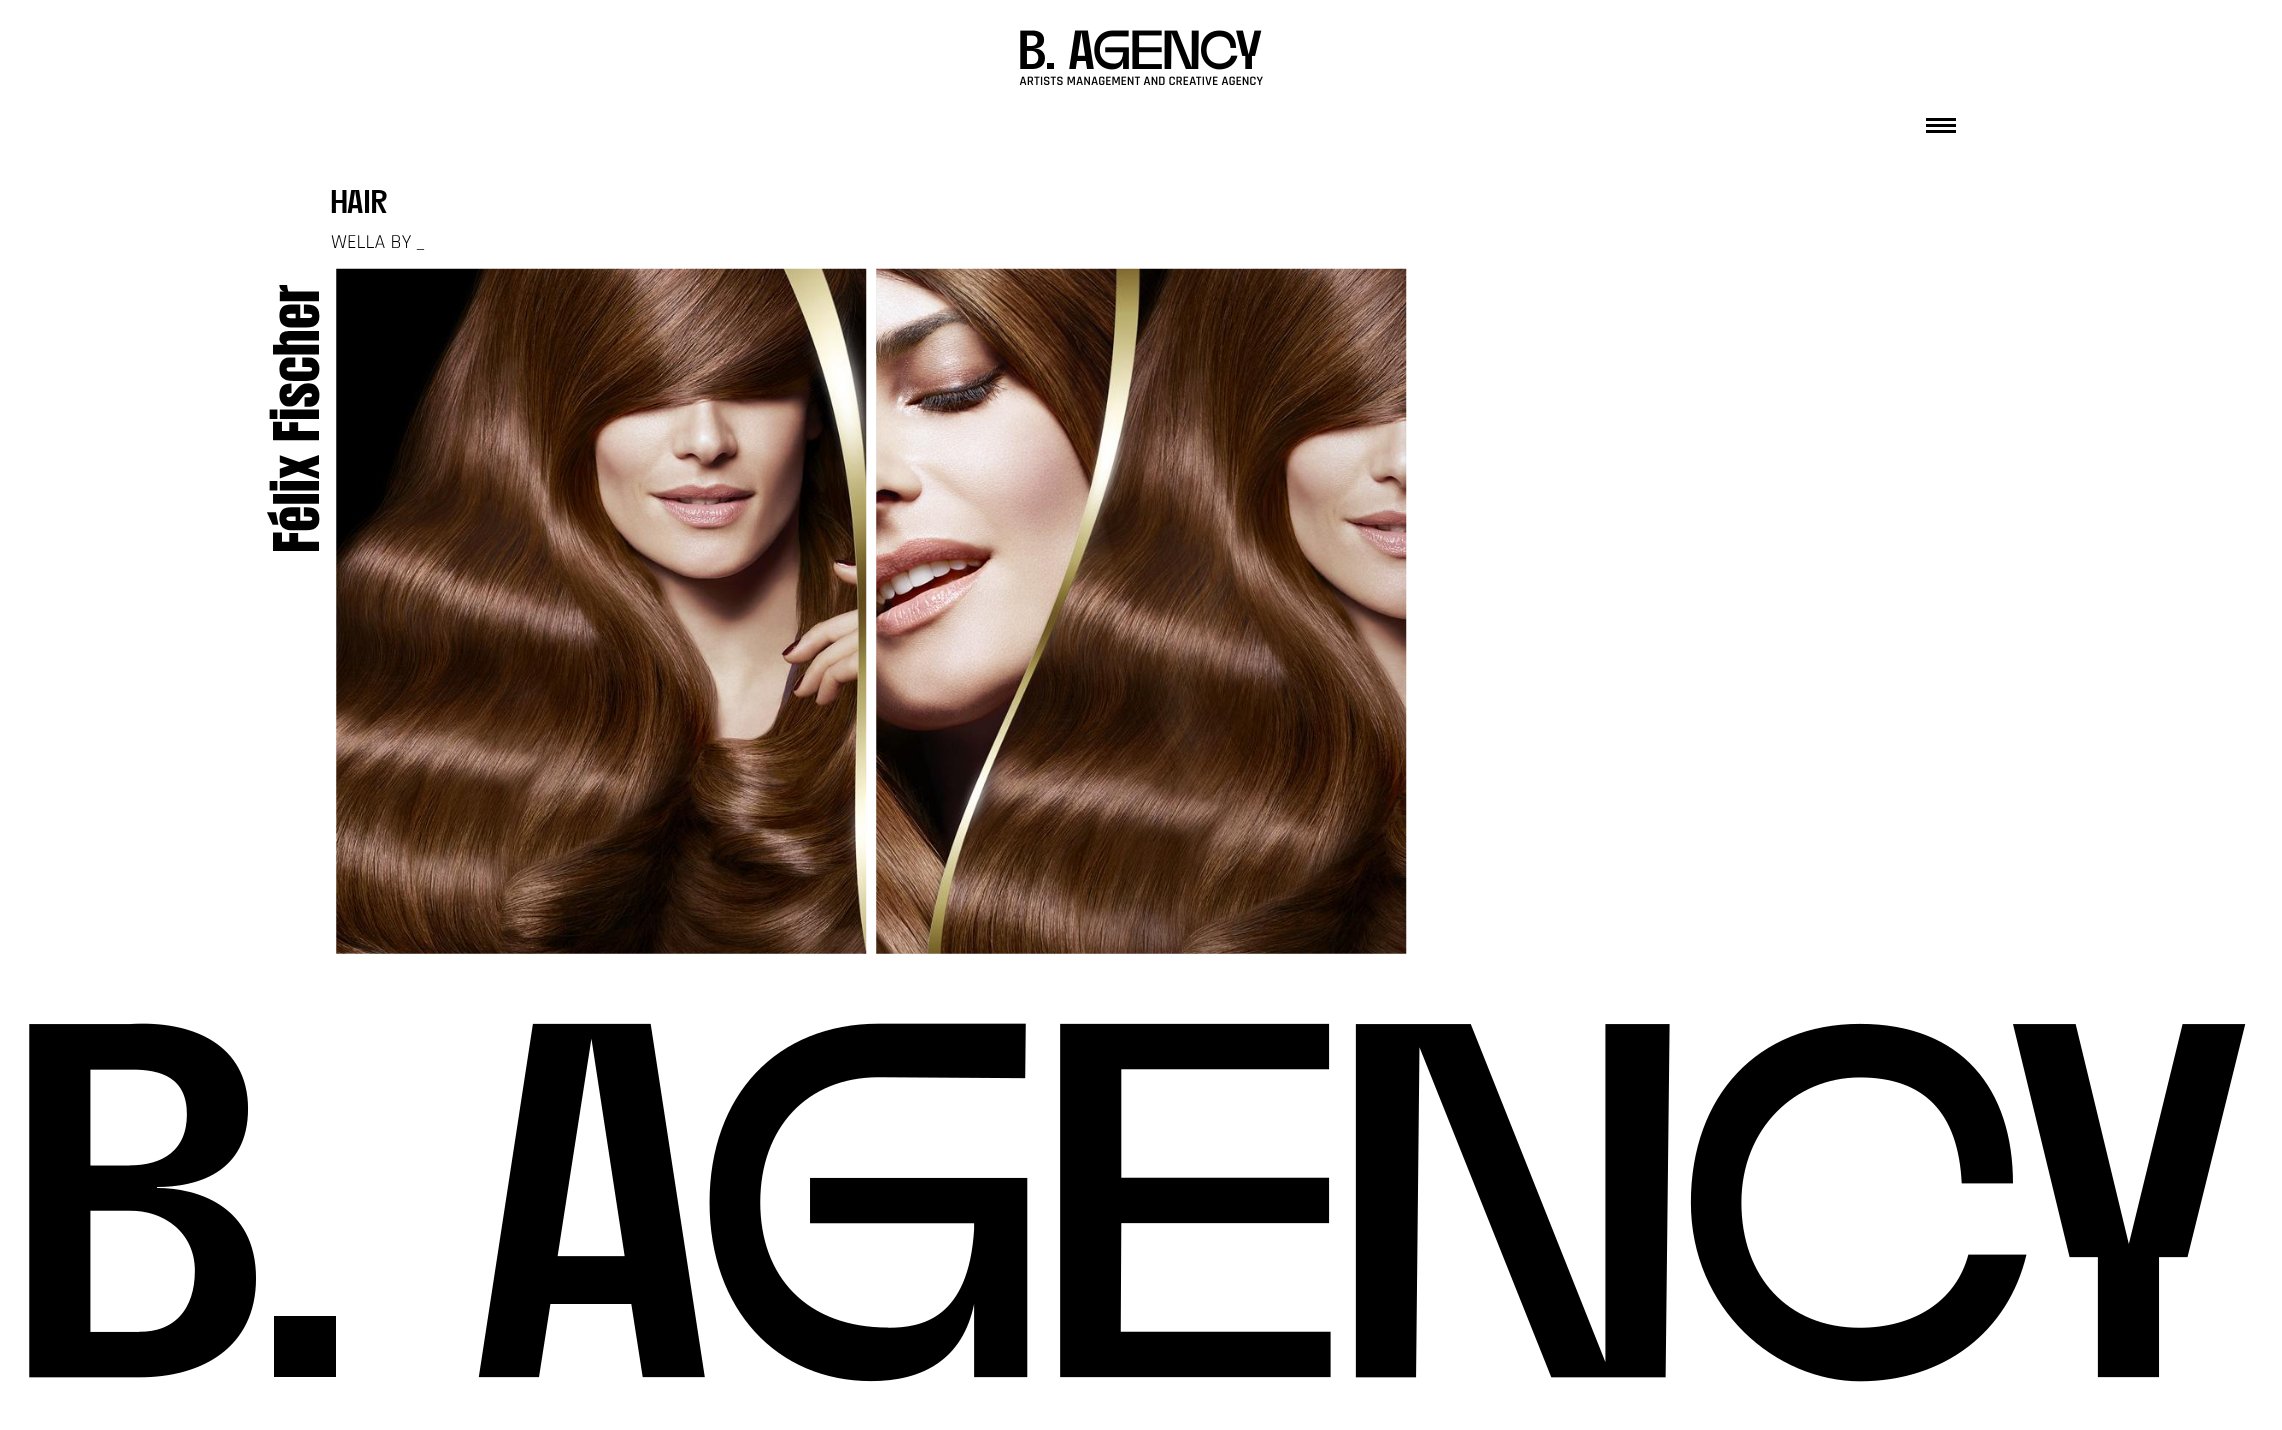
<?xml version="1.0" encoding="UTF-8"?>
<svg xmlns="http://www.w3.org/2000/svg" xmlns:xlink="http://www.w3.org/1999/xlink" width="2282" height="1430">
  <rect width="100%" height="100%" fill="#ffffff" />
  <image x="1019" y="30" width="244" height="55" xlink:href="image1.png" />
  <rect x="1926" y="130" width="30" height="3" fill="#000000" />
  <rect x="1926" y="118" width="30" height="3" fill="#000000" />
  <rect x="1926" y="124" width="30" height="3" fill="#000000" />
  <image x="336" y="268" width="531" height="686" xlink:href="image2.png" />
  <image x="876" y="268" width="531" height="686" xlink:href="image3.png" />
  <image x="29" y="1023" width="2217" height="359" xlink:href="image4.png" />
  <text x="331" y="213" style="font-family: 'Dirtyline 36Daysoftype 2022'; font-size: 33px; fill: #000000">hair</text>
  <text x="331" y="248" style="font-family: Rajdhani; font-size: 20px; fill: #000000">WELLA BY _</text>
  <text x="319" y="553" transform="rotate(-90 319 553)" style="font-family: Anton; font-size: 53.5px; fill: #000000">Félix Fischer</text>
</svg>
